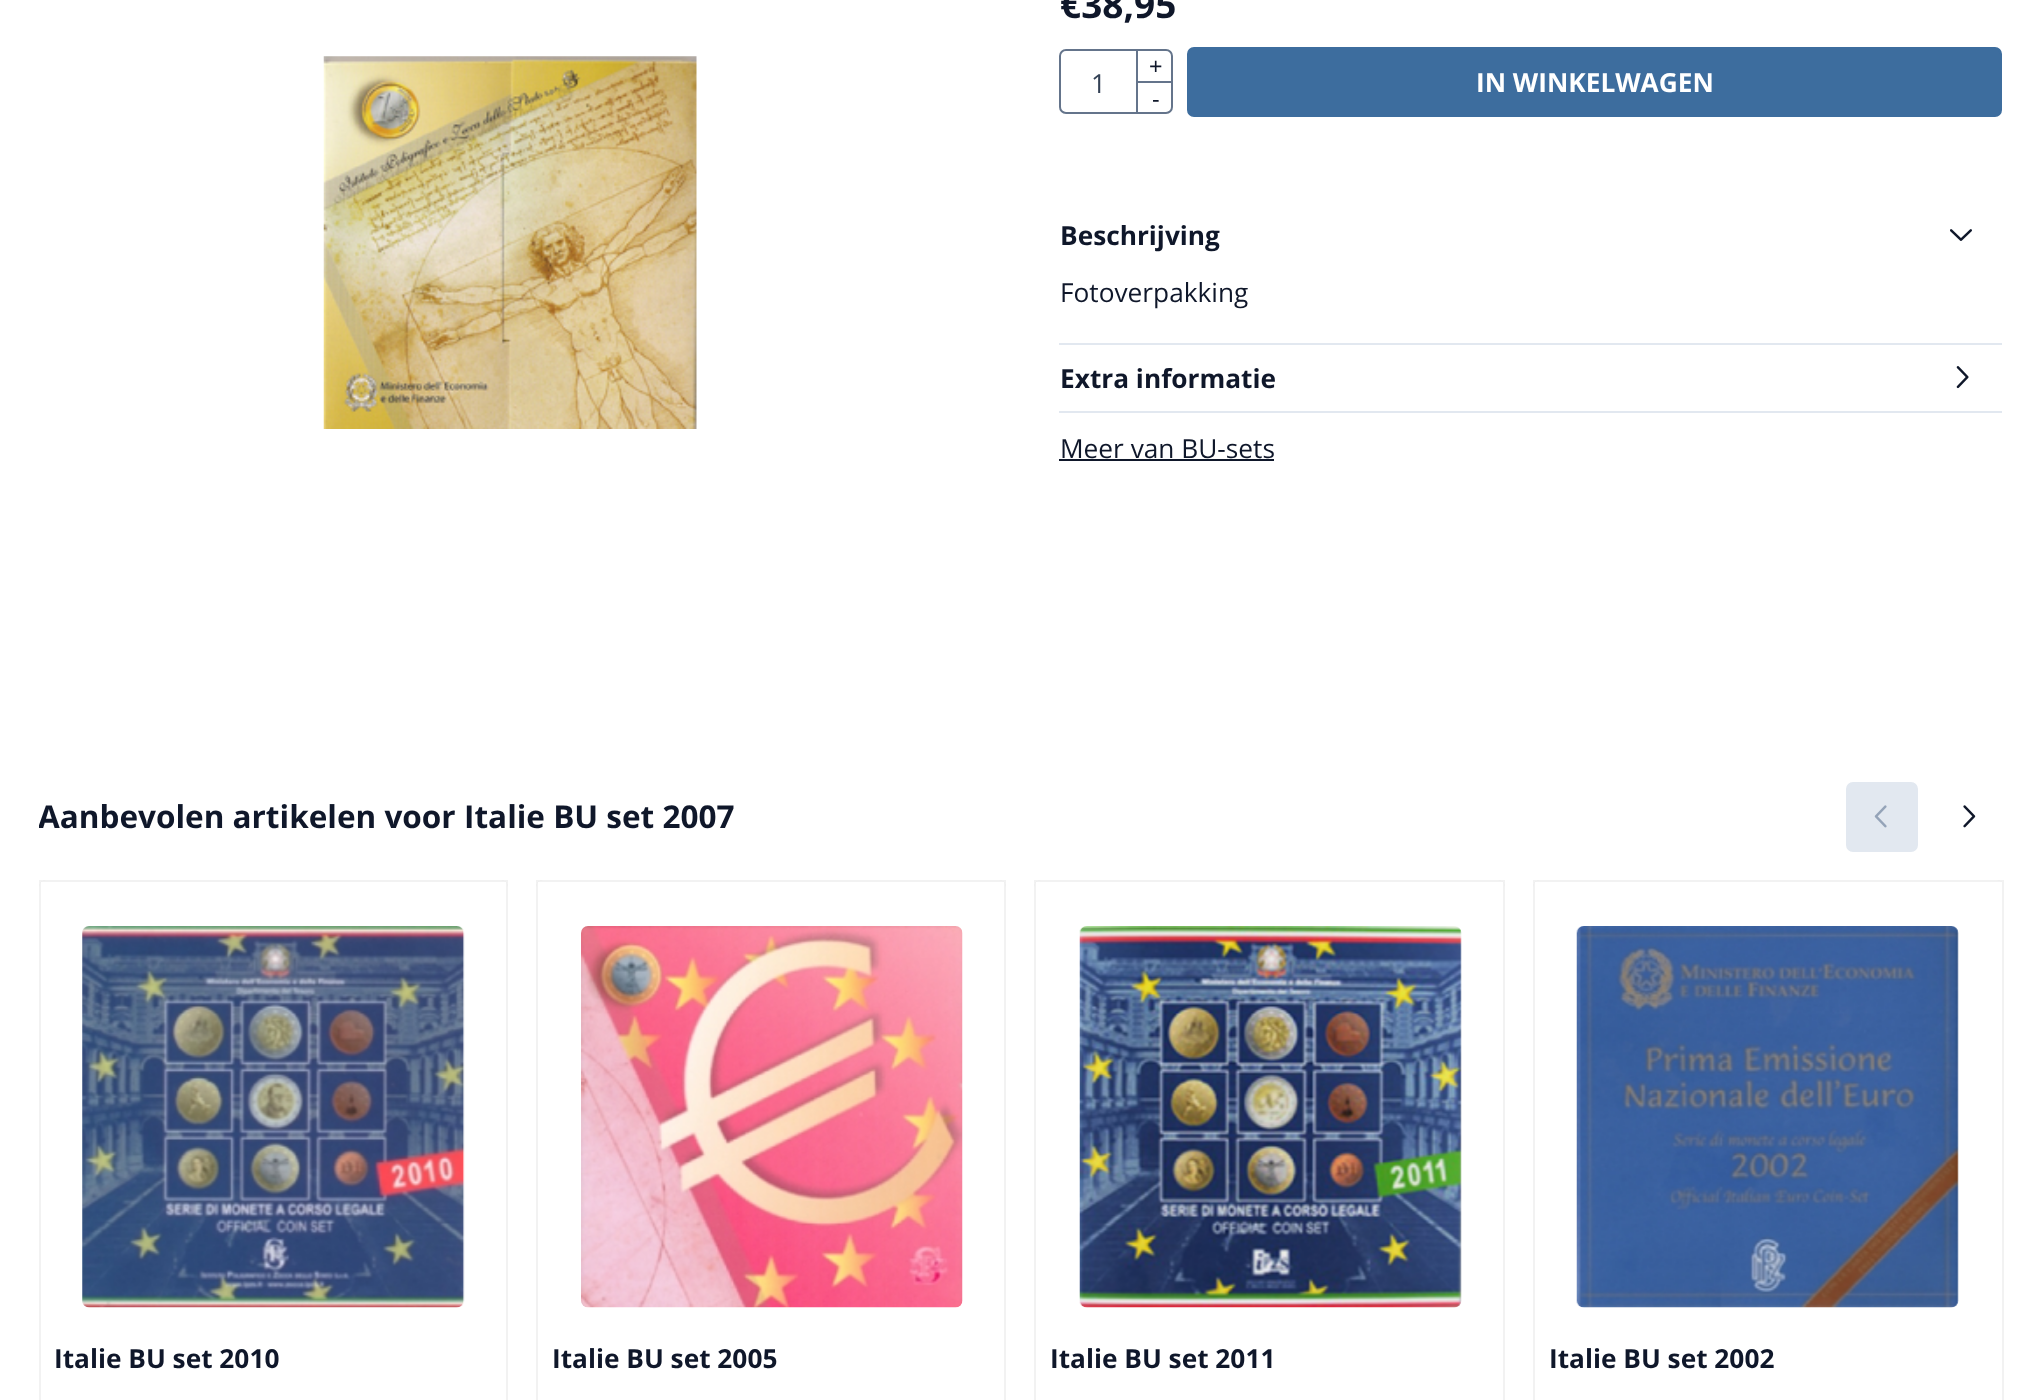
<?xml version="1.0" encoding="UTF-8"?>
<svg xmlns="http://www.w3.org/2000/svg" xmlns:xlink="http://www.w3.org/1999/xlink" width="2039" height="1400">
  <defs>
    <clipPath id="clip1"><rect x="39" y="782" width="1963" height="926" /></clipPath>
  </defs>
  <rect width="100%" height="100%" fill="#ffffff" />
  <image x="323" y="56" width="374" height="373" xlink:href="image1.png" />
  <rect x="1060" y="50" width="112" height="63" rx="6" fill="none" stroke="#64748b" stroke-width="2" />
  <rect x="1136" y="81" width="37" height="2" fill="#64748b" />
  <rect x="1136" y="49" width="2" height="63" fill="#64748b" />
  <rect x="1188" y="48" width="813" height="68" rx="6" fill="#3d6d9e" stroke="#3d6d9e" stroke-width="2" />
  <image x="1950" y="229" width="22" height="12" xlink:href="image2.png" />
  <rect x="1059" y="343" width="943" height="2" fill="#e2e8f0" />
  <rect x="1059" y="411" width="943" height="2" fill="#e2e8f0" />
  <image x="1956" y="366" width="13" height="23" xlink:href="image3.png" />
  <rect x="1059" y="459" width="215" height="2" fill="#0f172a" />
  <rect x="1847" y="783" width="70" height="68" rx="6" fill="#e2e8f0" stroke="#e2e8f0" stroke-width="2" />
  <image x="1874" y="805" width="13" height="23" xlink:href="image4.png" />
  <image x="1963" y="805" width="13" height="23" xlink:href="image5.png" />
  <rect x="40" y="881" width="467" height="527" rx="6" fill="none" stroke="#f2f2f2" stroke-width="2" />
  <rect x="39" y="880" width="469" height="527" rx="7" fill="#ffffff" />
  <rect x="40" y="881" width="467" height="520" fill="none" stroke="#000000" stroke-opacity="0.05" stroke-width="2" />
  <image x="82" y="926" width="383" height="382" xlink:href="image6.png" />
  <rect x="537" y="881" width="468" height="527" rx="6" fill="none" stroke="#f2f2f2" stroke-width="2" />
  <rect x="536" y="880" width="470" height="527" rx="7" fill="#ffffff" />
  <rect x="537" y="881" width="468" height="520" fill="none" stroke="#000000" stroke-opacity="0.05" stroke-width="2" />
  <image x="581" y="926" width="382" height="382" xlink:href="image7.png" />
  <rect x="1035" y="881" width="469" height="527" rx="6" fill="none" stroke="#f2f2f2" stroke-width="2" />
  <rect x="1034" y="880" width="471" height="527" rx="7" fill="#ffffff" />
  <rect x="1035" y="881" width="469" height="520" fill="none" stroke="#000000" stroke-opacity="0.05" stroke-width="2" />
  <image x="1079" y="926" width="383" height="382" xlink:href="image8.png" />
  <g clip-path="url(#clip1)">
    <rect x="1534" y="881" width="469" height="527" rx="6" fill="none" stroke="#f2f2f2" stroke-width="2" />
    <rect x="1533" y="880" width="471" height="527" rx="7" fill="#ffffff" />
  </g>
  <rect x="1534" y="881" width="469" height="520" fill="none" stroke="#000000" stroke-opacity="0.05" stroke-width="2" />
  <image x="1576" y="926" width="383" height="382" xlink:href="image9.png" />
  <text x="1060" y="18" style="font-family: Open Sans; font-size: 37px; font-weight: bold; fill: #0f172a">€38,95</text>
  <text x="1091" y="93" style="font-family: Open Sans; font-size: 26.25px; fill: #334155">1</text>
  <text x="1149" y="74" style="font-family: Liberation Sans; font-size: 23px; fill: #0f172a">+</text>
  <text x="1152" y="107" style="font-family: Liberation Sans; font-size: 23px; fill: #0f172a">-</text>
  <text x="1476" y="92" style="font-family: Open Sans; font-size: 26.25px; font-weight: bold; fill: #ffffff">IN WINKELWAGEN</text>
  <text x="1060" y="245" style="font-family: Open Sans; font-size: 26.25px; font-weight: bold; fill: #0f172a">Beschrijving</text>
  <text x="1060" y="302" style="font-family: Open Sans; font-size: 26.25px; fill: #0f172a">Fotoverpakking</text>
  <text x="1060" y="388" style="font-family: Open Sans; font-size: 26.25px; font-weight: bold; fill: #0f172a">Extra informatie</text>
  <text x="1060" y="458" style="font-family: Open Sans; font-size: 26.25px; fill: #0f172a">Meer van BU-sets</text>
  <g clip-path="url(#clip1)">
    <text x="38" y="828" style="font-family: Open Sans; font-size: 31.5px; font-weight: bold; fill: #0f172a">Aanbevolen artikelen voor</text>
  </g>
  <text x="464" y="828" style="font-family: Open Sans; font-size: 31.5px; font-weight: bold; fill: #0f172a">Italie BU set 2007</text>
  <text x="54" y="1368" style="font-family: Open Sans; font-size: 26.25px; font-weight: bold; fill: #0f172a">Italie BU set 2010</text>
  <text x="552" y="1368" style="font-family: Open Sans; font-size: 26.25px; font-weight: bold; fill: #0f172a">Italie BU set 2005</text>
  <text x="1050" y="1368" style="font-family: Open Sans; font-size: 26.25px; font-weight: bold; fill: #0f172a">Italie BU set 2011</text>
  <text x="1549" y="1368" style="font-family: Open Sans; font-size: 26.25px; font-weight: bold; fill: #0f172a">Italie BU set 2002</text>
</svg>
